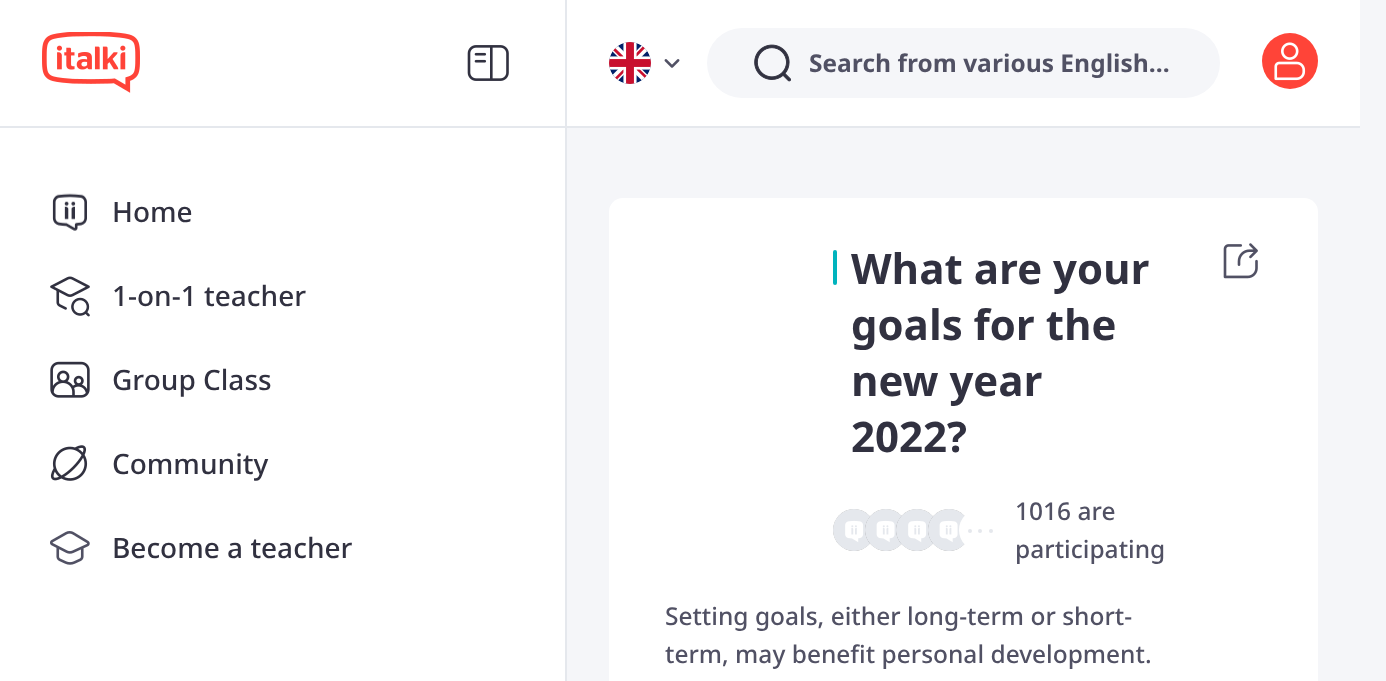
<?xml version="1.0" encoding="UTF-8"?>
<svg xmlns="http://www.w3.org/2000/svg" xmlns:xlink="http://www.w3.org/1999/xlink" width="1386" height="681">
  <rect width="100%" height="100%" fill="#f5f6f9" />
  <rect width="565" height="681" fill="#ffffff" />
  <rect x="565" width="2" height="681" fill="#e5e8ed" />
  <rect y="126" width="565" height="2" fill="#e5e8ed" />
  <image x="42" y="32" width="98" height="61" xlink:href="image1.png" />
  <image x="467" y="45" width="42" height="36" xlink:href="image2.png" />
  <image x="52" y="193" width="35" height="38" xlink:href="image3.png" />
  <image x="50" y="276" width="40" height="41" xlink:href="image4.png" />
  <image x="50" y="361" width="40" height="37" xlink:href="image5.png" />
  <image x="50" y="445" width="38" height="36" xlink:href="image6.png" />
  <image x="50" y="531" width="40" height="34" xlink:href="image7.png" />
  <rect x="567" width="793" height="126" fill="#ffffff" />
  <rect x="567" y="126" width="793" height="2" fill="#e5e8ed" />
  <circle cx="630" cy="63" r="21" fill="#f5f6f9" />
  <image x="609" y="42" width="42" height="42" xlink:href="image8.png" />
  <image x="664" y="59" width="16" height="9" xlink:href="image9.png" />
  <rect x="707" y="28" width="513" height="70" rx="35" fill="#f5f6f9" />
  <image x="754" y="44" width="37" height="38" xlink:href="image10.png" />
  <circle cx="1290" cy="61" r="28" fill="#ff4438" />
  <image x="1274" y="42" width="32" height="39" xlink:href="image11.png" />
  <rect x="609" y="198" width="709" height="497" rx="14" fill="#ffffff" />
  <rect x="833" y="250" width="4" height="35" rx="2" fill="#00b3bd" />
  <circle cx="854" cy="530" r="21" fill="#bfbfbf" />
  <image x="833" y="509" width="37" height="42" xlink:href="image12.png" />
  <circle cx="886" cy="530" r="21" fill="#000000" fill-opacity="0.25" />
  <image x="865" y="509" width="37" height="42" xlink:href="image13.png" />
  <circle cx="917" cy="530" r="21" fill="#000000" fill-opacity="0.25" />
  <image x="896" y="509" width="37" height="42" xlink:href="image14.png" />
  <circle cx="949" cy="530" r="21" fill="#000000" fill-opacity="0.25" />
  <image x="928" y="509" width="37" height="42" xlink:href="image15.png" />
  <circle cx="980" cy="530" r="20" fill="#ffffff" stroke="#ffffff" stroke-width="2" />
  <circle cx="970" cy="531" r="2" fill="#e5e8ed" />
  <circle cx="980" cy="531" r="2" fill="#e5e8ed" />
  <circle cx="991" cy="531" r="2" fill="#e5e8ed" />
  <image x="1223" y="243" width="35" height="36" xlink:href="image16.png" />
  <text x="112" y="222" style="font-family: Noto Sans; font-size: 28px; font-weight: 500; fill: #313140">Home</text>
  <text x="112" y="306" style="font-family: Noto Sans; font-size: 28px; font-weight: 500; fill: #313140">1-on-1 teacher</text>
  <text x="112" y="390" style="font-family: Noto Sans; font-size: 28px; font-weight: 500; fill: #313140">Group Class</text>
  <text x="112" y="474" style="font-family: Noto Sans; font-size: 28px; font-weight: 500; fill: #313140">Community</text>
  <text x="112" y="558" style="font-family: Noto Sans; font-size: 28px; font-weight: 500; fill: #313140">Become a teacher</text>
  <text x="809" y="72" style="font-family: Noto Sans; font-size: 24.5px; font-weight: bold; fill: #515164">Search from various English…</text>
  <text x="851" y="284" style="font-family: Noto Sans; font-size: 42px; font-weight: bold; fill: #313140">What are your</text>
  <text x="851" y="340" style="font-family: Noto Sans; font-size: 42px; font-weight: bold; fill: #313140">goals for the</text>
  <text x="851" y="396" style="font-family: Noto Sans; font-size: 42px; font-weight: bold; fill: #313140">new year</text>
  <text x="851" y="452" style="font-family: Noto Sans; font-size: 42px; font-weight: bold; fill: #313140">2022?</text>
  <text x="1015" y="520" style="font-family: Noto Sans; font-size: 24.5px; font-weight: 500; fill: #515164">1016 are</text>
  <text x="1015" y="558" style="font-family: Noto Sans; font-size: 24.5px; font-weight: 500; fill: #515164">participating</text>
  <text x="665" y="625" style="font-family: Noto Sans; font-size: 24.5px; font-weight: 500; fill: #515164">Setting goals, either long-term or short-</text>
  <text x="665" y="663" style="font-family: Noto Sans; font-size: 24.5px; font-weight: 500; fill: #515164">term, may benefit personal development.</text>
</svg>
